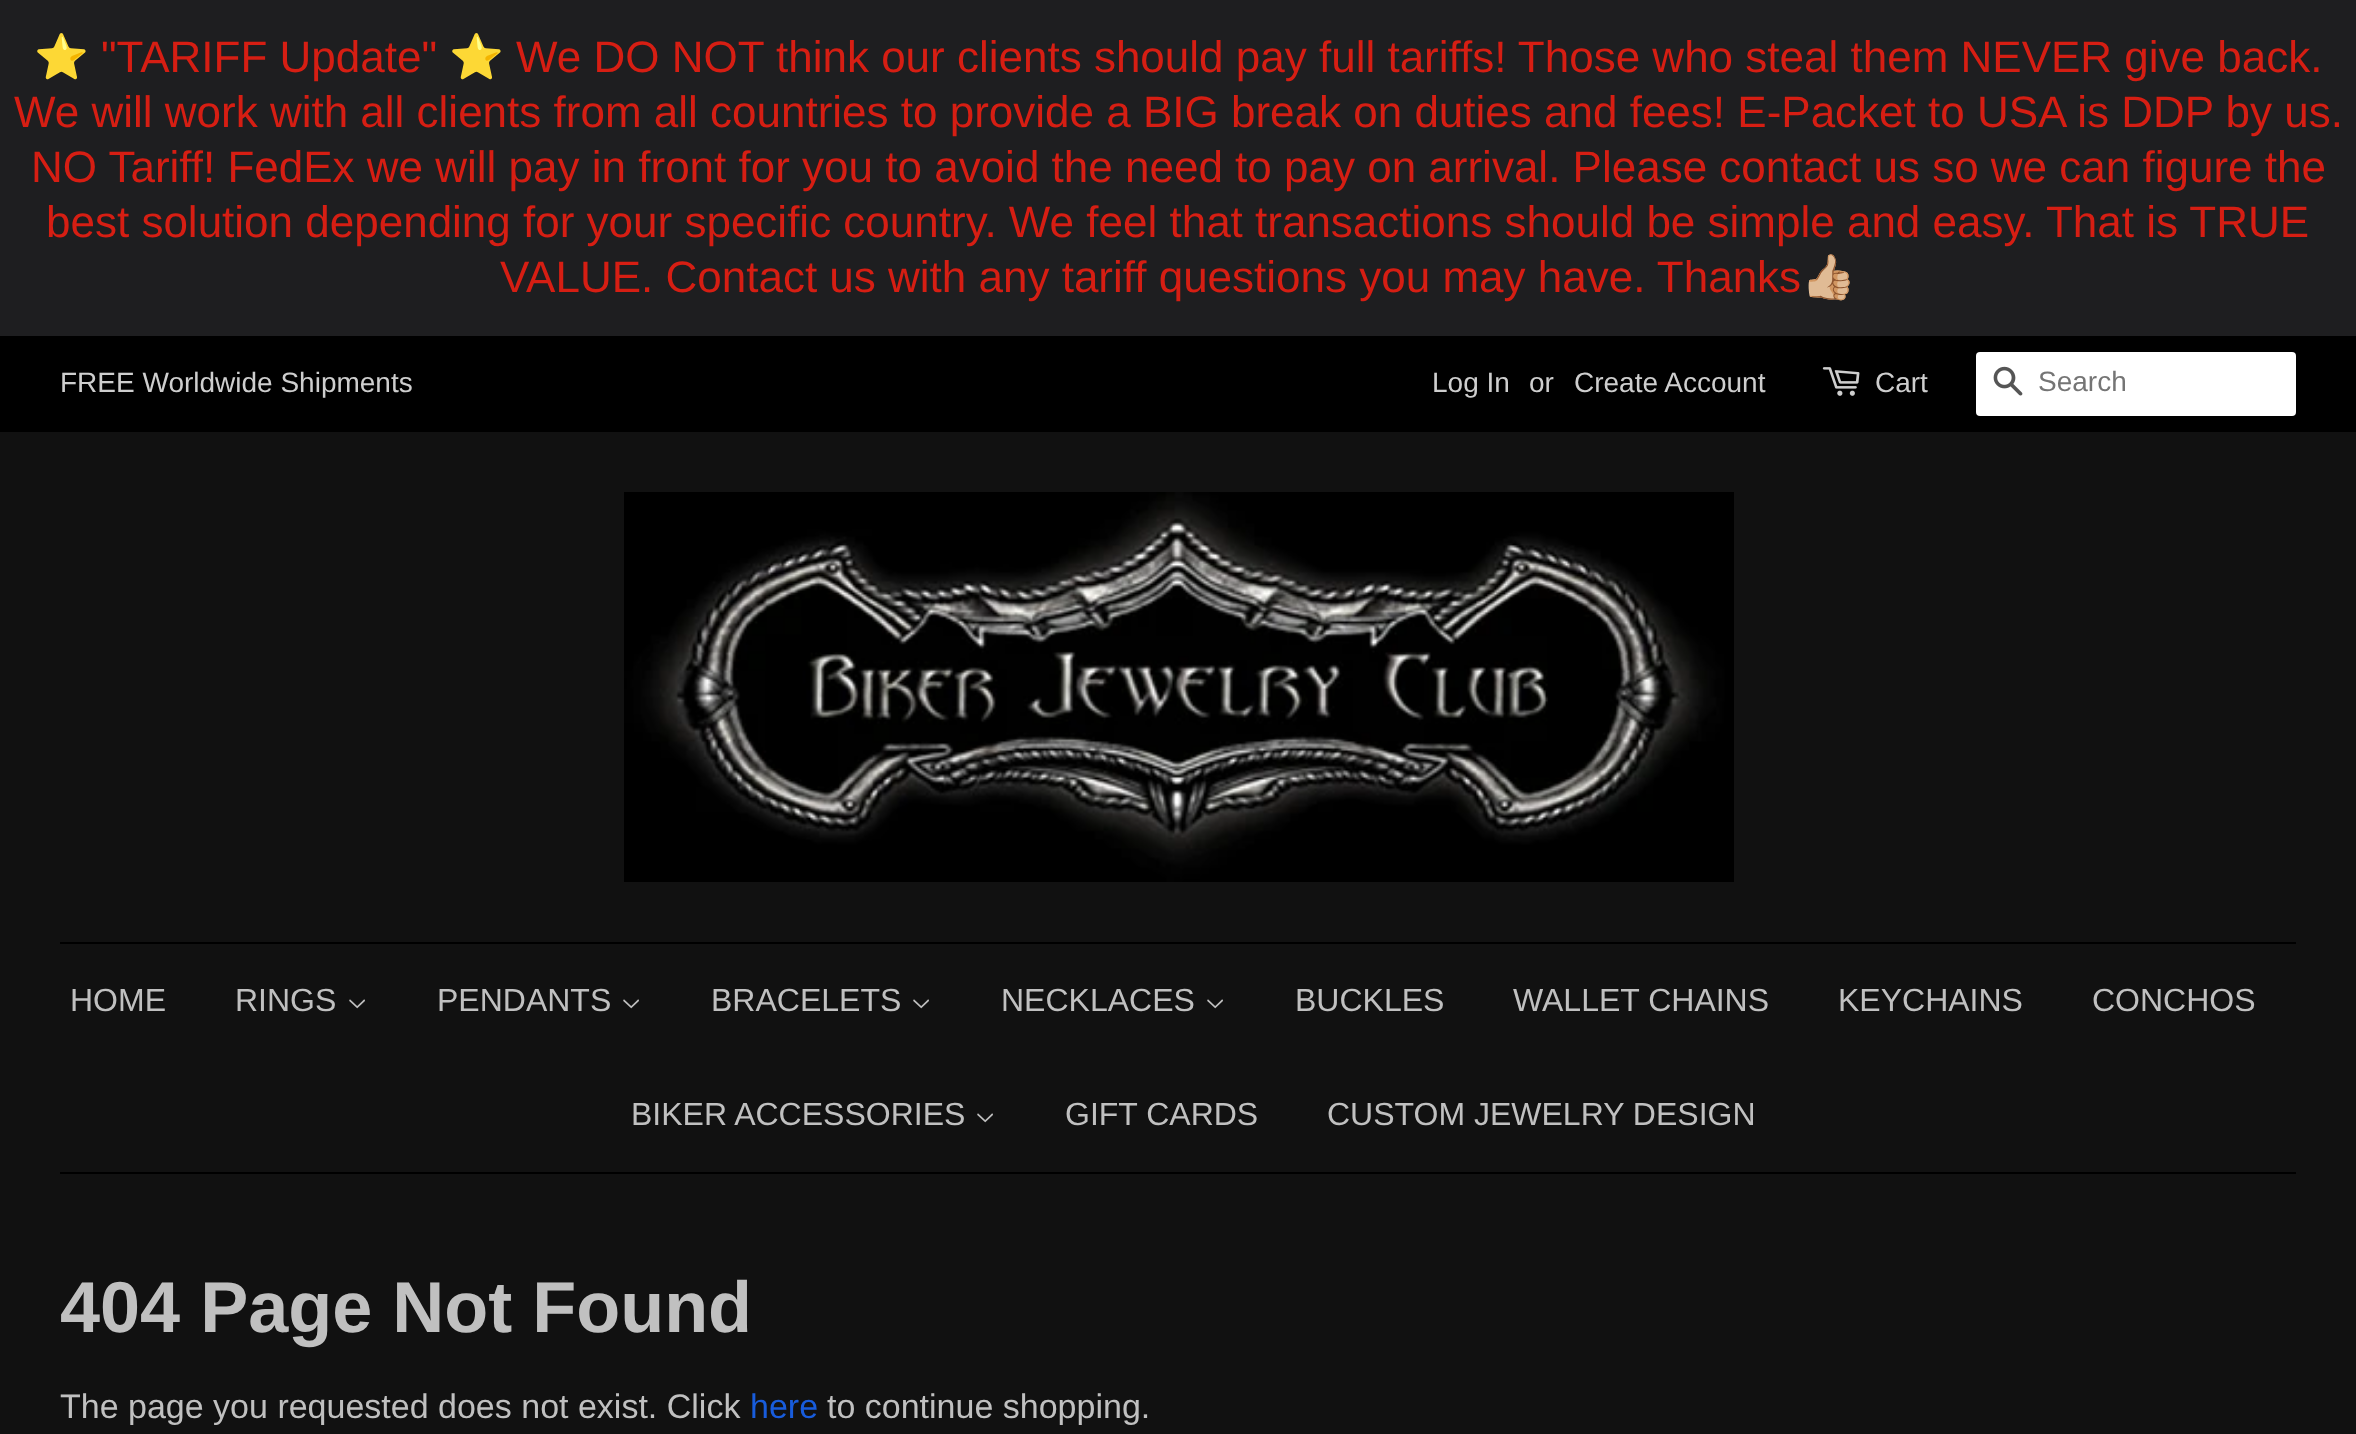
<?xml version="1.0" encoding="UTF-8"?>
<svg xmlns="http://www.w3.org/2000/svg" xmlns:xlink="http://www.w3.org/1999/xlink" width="2356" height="1434">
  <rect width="100%" height="100%" fill="#111111" />
  <rect width="2356" height="336" fill="#1e1e20" />
  <rect y="336" width="2356" height="96" fill="#000000" />
  <image x="1822" y="367" width="38" height="29" xlink:href="image1.png" />
  <rect x="1976" y="352" width="320" height="64" rx="4" fill="#ffffff" />
  <image x="1993" y="366" width="30" height="30" xlink:href="image2.png" />
  <image x="624" y="492" width="1110" height="390" xlink:href="image3.png" />
  <rect x="60" y="942" width="2236" height="2" fill="#000000" />
  <rect x="60" y="1172" width="2236" height="2" fill="#000000" />
  <image x="349" y="999" width="16" height="10" xlink:href="image4.png" />
  <image x="623" y="999" width="16" height="10" xlink:href="image4.png" />
  <image x="913" y="999" width="16" height="10" xlink:href="image4.png" />
  <image x="1207" y="999" width="16" height="10" xlink:href="image4.png" />
  <image x="977" y="1113" width="16" height="10" xlink:href="image4.png" />
  <text x="34" y="72" style="font-family: Noto Color Emoji; font-size: 44px; fill: #d61e13">⭐️</text>
  <text x="101" y="72" style="font-family: Liberation Sans; font-size: 44px; fill: #d61e13">"TARIFF Update"</text>
  <text x="449" y="72" style="font-family: Noto Color Emoji; font-size: 44px; fill: #d61e13">⭐️</text>
  <text x="516" y="72" style="font-family: Liberation Sans; font-size: 44px; fill: #d61e13">We DO NOT think our clients should pay full tariffs! Those who steal them NEVER give back.</text>
  <text x="14" y="127" style="font-family: Liberation Sans; font-size: 44px; fill: #d61e13">We will work with all clients from all countries to provide a BIG break on duties and fees! E-Packet to USA is DDP by us.</text>
  <text x="31" y="182" style="font-family: Liberation Sans; font-size: 44px; fill: #d61e13">NO Tariff! FedEx we will pay in front for you to avoid the need to pay on arrival. Please contact us so we can figure the</text>
  <text x="46" y="237" style="font-family: Liberation Sans; font-size: 44px; fill: #d61e13">best solution depending for your specific country. We feel that transactions should be simple and easy. That is TRUE</text>
  <text x="500" y="292" style="font-family: Liberation Sans; font-size: 44px; fill: #d61e13">VALUE. Contact us with any tariff questions you may have. Thanks</text>
  <text x="1801" y="292" style="font-family: Noto Color Emoji; font-size: 44px; fill: #d61e13">👍🏼</text>
  <text x="60" y="392" style="font-family: Liberation Sans; font-size: 28px; fill: #cecece">FREE Worldwide Shipments</text>
  <text x="1432" y="392" style="font-family: Liberation Sans; font-size: 28px; fill: #cecece">Log In</text>
  <text x="1529" y="392" style="font-family: Liberation Sans; font-size: 28px; fill: #cecece">or</text>
  <text x="1574" y="392" style="font-family: Liberation Sans; font-size: 28px; fill: #cecece">Create Account</text>
  <text x="1875" y="392" style="font-family: Liberation Sans; font-size: 28px; fill: #cecece">Cart</text>
  <text x="2038" y="391" style="font-family: Liberation Sans; font-size: 28px; fill: #757575">Search</text>
  <text x="70" y="1011" style="font-family: Liberation Sans; font-size: 32px; fill: #c0c0c0">HOME</text>
  <text x="235" y="1011" style="font-family: Liberation Sans; font-size: 32px; fill: #c0c0c0">RINGS</text>
  <text x="437" y="1011" style="font-family: Liberation Sans; font-size: 32px; fill: #c0c0c0">PENDANTS</text>
  <text x="711" y="1011" style="font-family: Liberation Sans; font-size: 32px; fill: #c0c0c0">BRACELETS</text>
  <text x="1001" y="1011" style="font-family: Liberation Sans; font-size: 32px; fill: #c0c0c0">NECKLACES</text>
  <text x="1295" y="1011" style="font-family: Liberation Sans; font-size: 32px; fill: #c0c0c0">BUCKLES</text>
  <text x="1513" y="1011" style="font-family: Liberation Sans; font-size: 32px; fill: #c0c0c0">WALLET CHAINS</text>
  <text x="1838" y="1011" style="font-family: Liberation Sans; font-size: 32px; fill: #c0c0c0">KEYCHAINS</text>
  <text x="2092" y="1011" style="font-family: Liberation Sans; font-size: 32px; fill: #c0c0c0">CONCHOS</text>
  <text x="631" y="1125" style="font-family: Liberation Sans; font-size: 32px; fill: #c0c0c0">BIKER ACCESSORIES</text>
  <text x="1065" y="1125" style="font-family: Liberation Sans; font-size: 32px; fill: #c0c0c0">GIFT CARDS</text>
  <text x="1327" y="1125" style="font-family: Liberation Sans; font-size: 32px; fill: #c0c0c0">CUSTOM JEWELRY DESIGN</text>
  <text x="60" y="1332" style="font-family: Liberation Sans; font-size: 72px; font-weight: bold; fill: #c0c0c0">404 Page Not Found</text>
  <text x="60" y="1418" style="font-family: Liberation Sans; font-size: 34px; fill: #c0c0c0">The page you requested does not exist. Click</text>
  <text x="750" y="1418" style="font-family: Liberation Sans; font-size: 34px; fill: #185cdc">here</text>
  <text x="827" y="1418" style="font-family: Liberation Sans; font-size: 34px; fill: #c0c0c0">to continue shopping.</text>
</svg>
